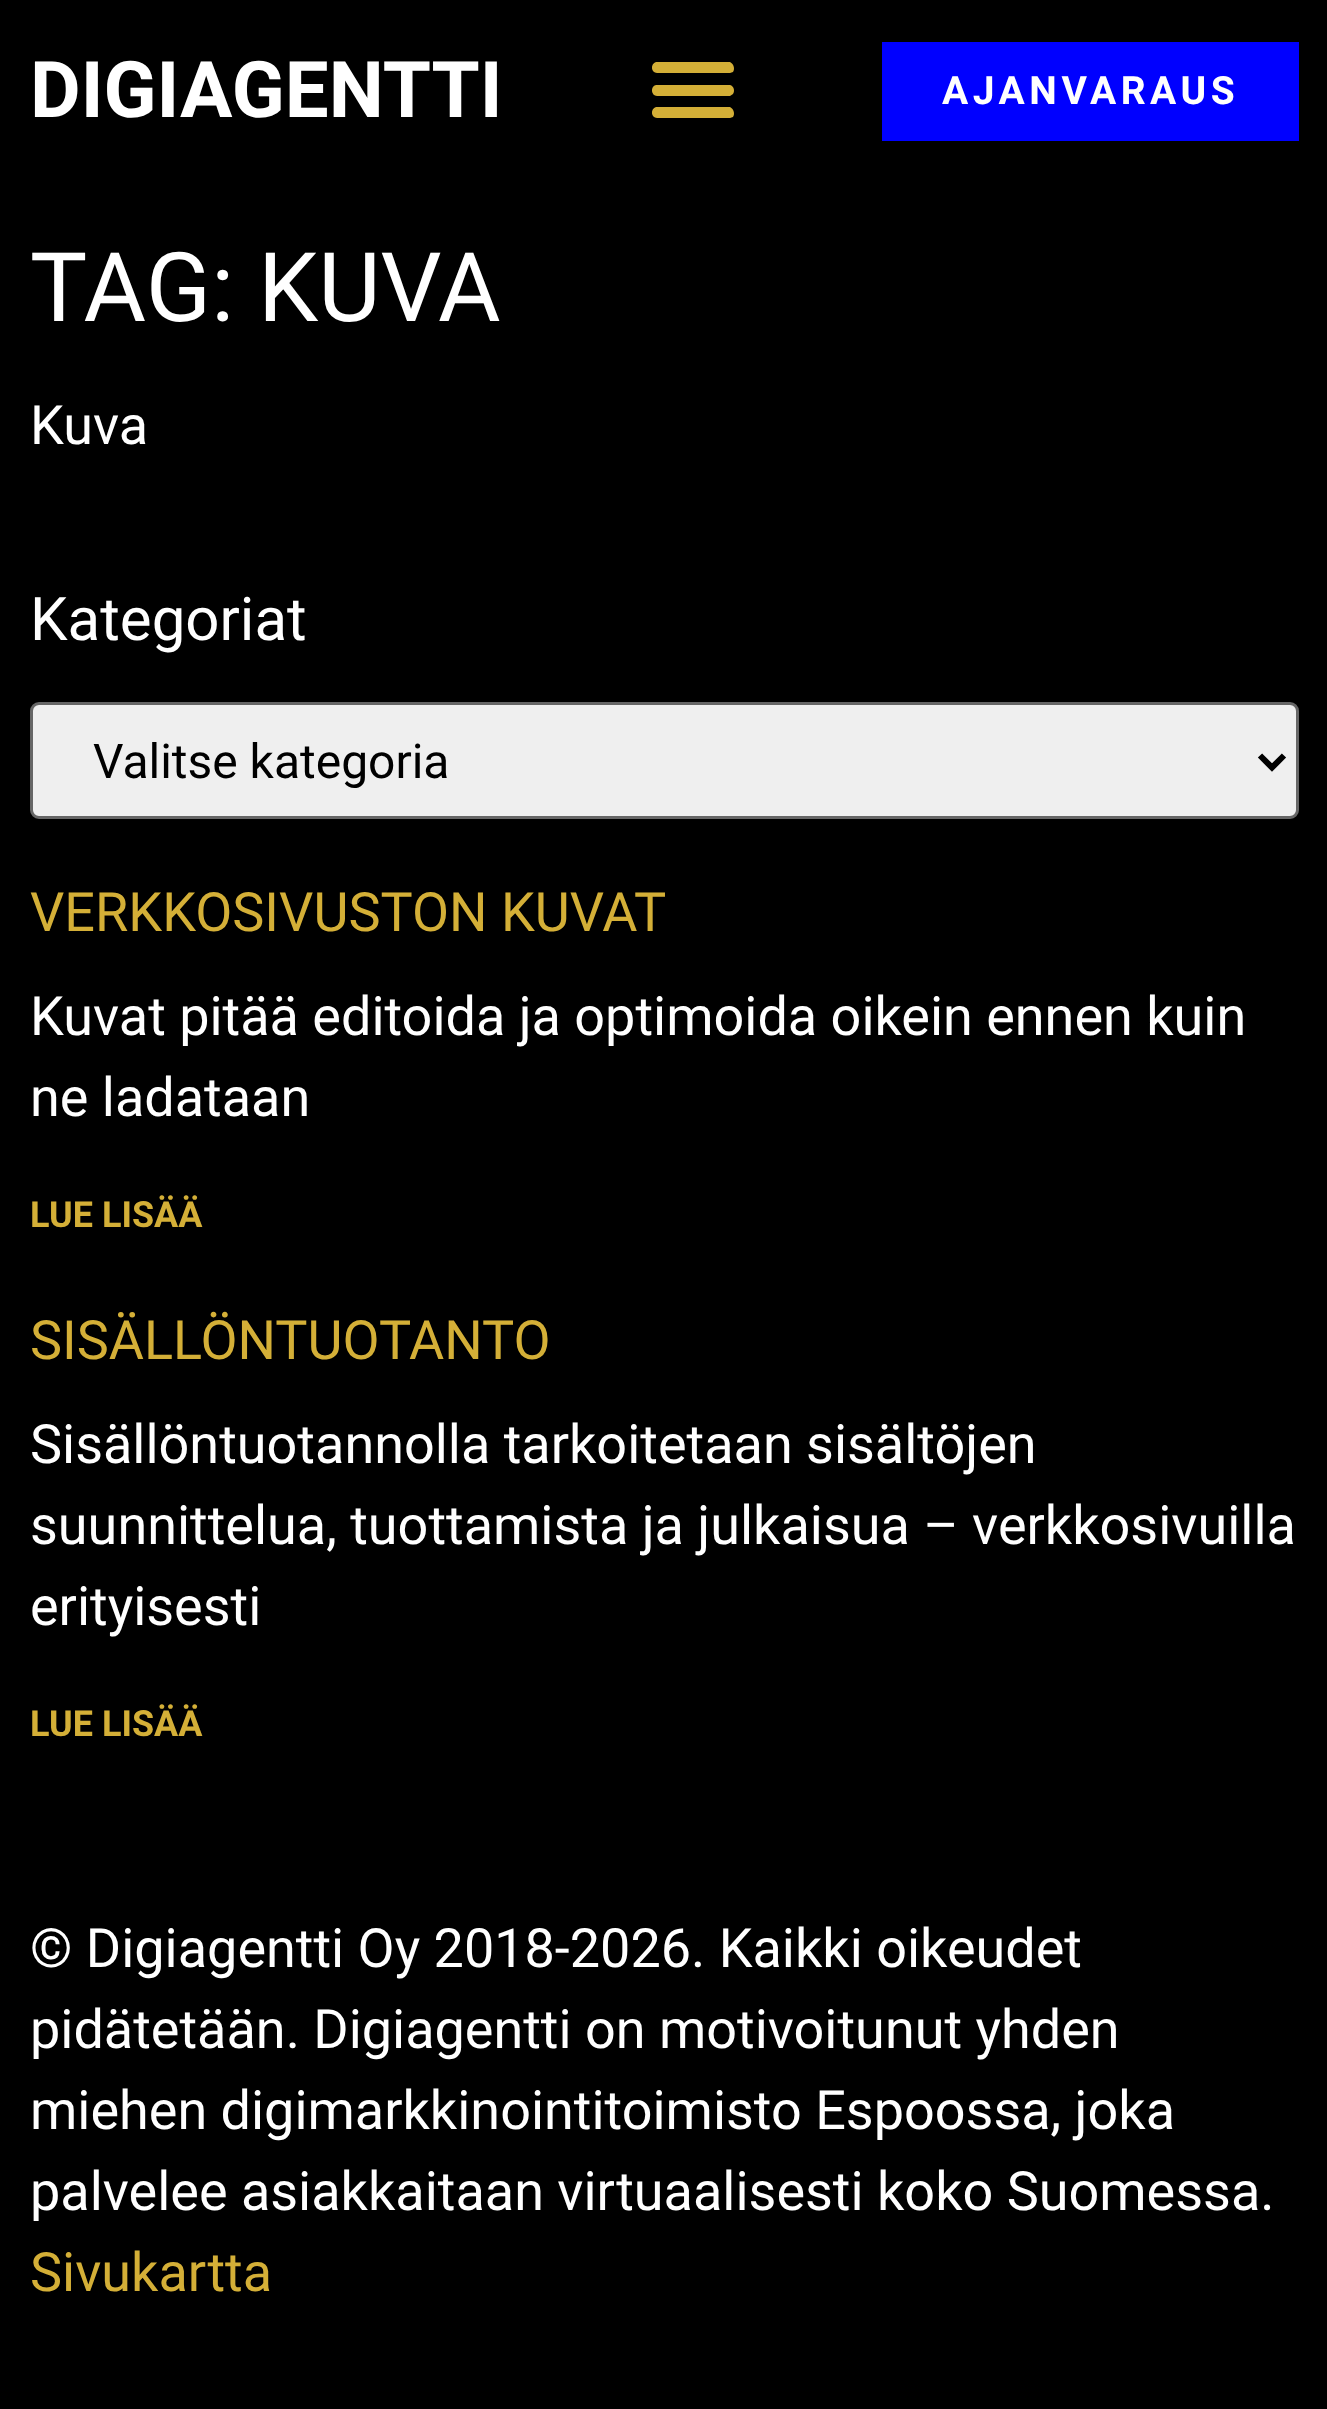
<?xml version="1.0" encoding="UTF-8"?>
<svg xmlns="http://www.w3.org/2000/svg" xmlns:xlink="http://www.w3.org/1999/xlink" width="1327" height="2409">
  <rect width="100%" height="100%" fill="#000000" />
  <path d="M 657 73 h 73 l 3 -1 c 2 -3 1 -8 -3 -10 h -74 c -6 2 -5 11 1 11 z m 0 23 h 73 l 3 -2 c 2 -3 1 -8 -3 -9 h -74 c -6 1 -5 11 1 11 z m 0 22 h 73 l 3 -1 c 2 -3 1 -8 -3 -10 h -74 c -6 2 -5 11 1 11 z" fill="#d4af37" />
  <rect x="882" y="42" width="417" height="99" fill="#0000ff" />
  <rect x="31.5" y="703.5" width="1266" height="114" rx="7.5" fill="#efefef" stroke="#666666" stroke-width="3" />
  <path d="M 1260 755.5 l 12 12 l 12 -12" fill="none" stroke="#000000" stroke-width="6" />
  <text x="30" y="117" style="font-family: Roboto; font-size: 78px; font-weight: bold; fill: #ffffff">DIGIAGENTTI</text>
  <text x="942" y="104" style="font-family: Roboto; font-size: 39px; font-weight: bold; letter-spacing: 4.5px; fill: #ffffff">AJANVARAUS</text>
  <text x="30" y="321" style="font-family: Roboto; font-size: 96px; fill: #ffffff">TAG: KUVA</text>
  <text x="30" y="444" style="font-family: Roboto; font-size: 54px; fill: #ffffff">Kuva</text>
  <text x="30" y="640" style="font-family: Roboto; font-size: 60px; fill: #ffffff">Kategoriat</text>
  <text x="93" y="778" style="font-family: Roboto; font-size: 48px; fill: #000000">Valitse kategoria</text>
  <text x="30" y="931" style="font-family: Roboto; font-size: 54px; fill: #d4af37">VERKKOSIVUSTON KUVAT</text>
  <text x="30" y="1035" style="font-family: Roboto; font-size: 54px; fill: #ffffff">Kuvat pitää editoida ja optimoida oikein ennen kuin</text>
  <text x="30" y="1116" style="font-family: Roboto; font-size: 54px; fill: #ffffff">ne ladataan</text>
  <text x="30" y="1227" style="font-family: Roboto; font-size: 36px; font-weight: bold; fill: #d4af37">LUE LISÄÄ</text>
  <text x="30" y="1359" style="font-family: Roboto; font-size: 54px; fill: #d4af37">SISÄLLÖNTUOTANTO</text>
  <text x="30" y="1463" style="font-family: Roboto; font-size: 54px; fill: #ffffff">Sisällöntuotannolla tarkoitetaan sisältöjen</text>
  <text x="30" y="1544" style="font-family: Roboto; font-size: 54px; fill: #ffffff">suunnittelua, tuottamista ja julkaisua – verkkosivuilla</text>
  <text x="30" y="1625" style="font-family: Roboto; font-size: 54px; fill: #ffffff">erityisesti</text>
  <text x="30" y="1736" style="font-family: Roboto; font-size: 36px; font-weight: bold; fill: #d4af37">LUE LISÄÄ</text>
  <text x="30" y="1967" style="font-family: Roboto; font-size: 54px; fill: #ffffff">© Digiagentti Oy 2018-2026. Kaikki oikeudet</text>
  <text x="30" y="2048" style="font-family: Roboto; font-size: 54px; fill: #ffffff">pidätetään. Digiagentti on motivoitunut yhden</text>
  <text x="30" y="2129" style="font-family: Roboto; font-size: 54px; fill: #ffffff">miehen digimarkkinointitoimisto Espoossa, joka</text>
  <text x="30" y="2210" style="font-family: Roboto; font-size: 54px; fill: #ffffff">palvelee asiakkaitaan virtuaalisesti koko Suomessa.</text>
  <text x="30" y="2291" style="font-family: Roboto; font-size: 54px; fill: #d4af37">Sivukartta</text>
</svg>
